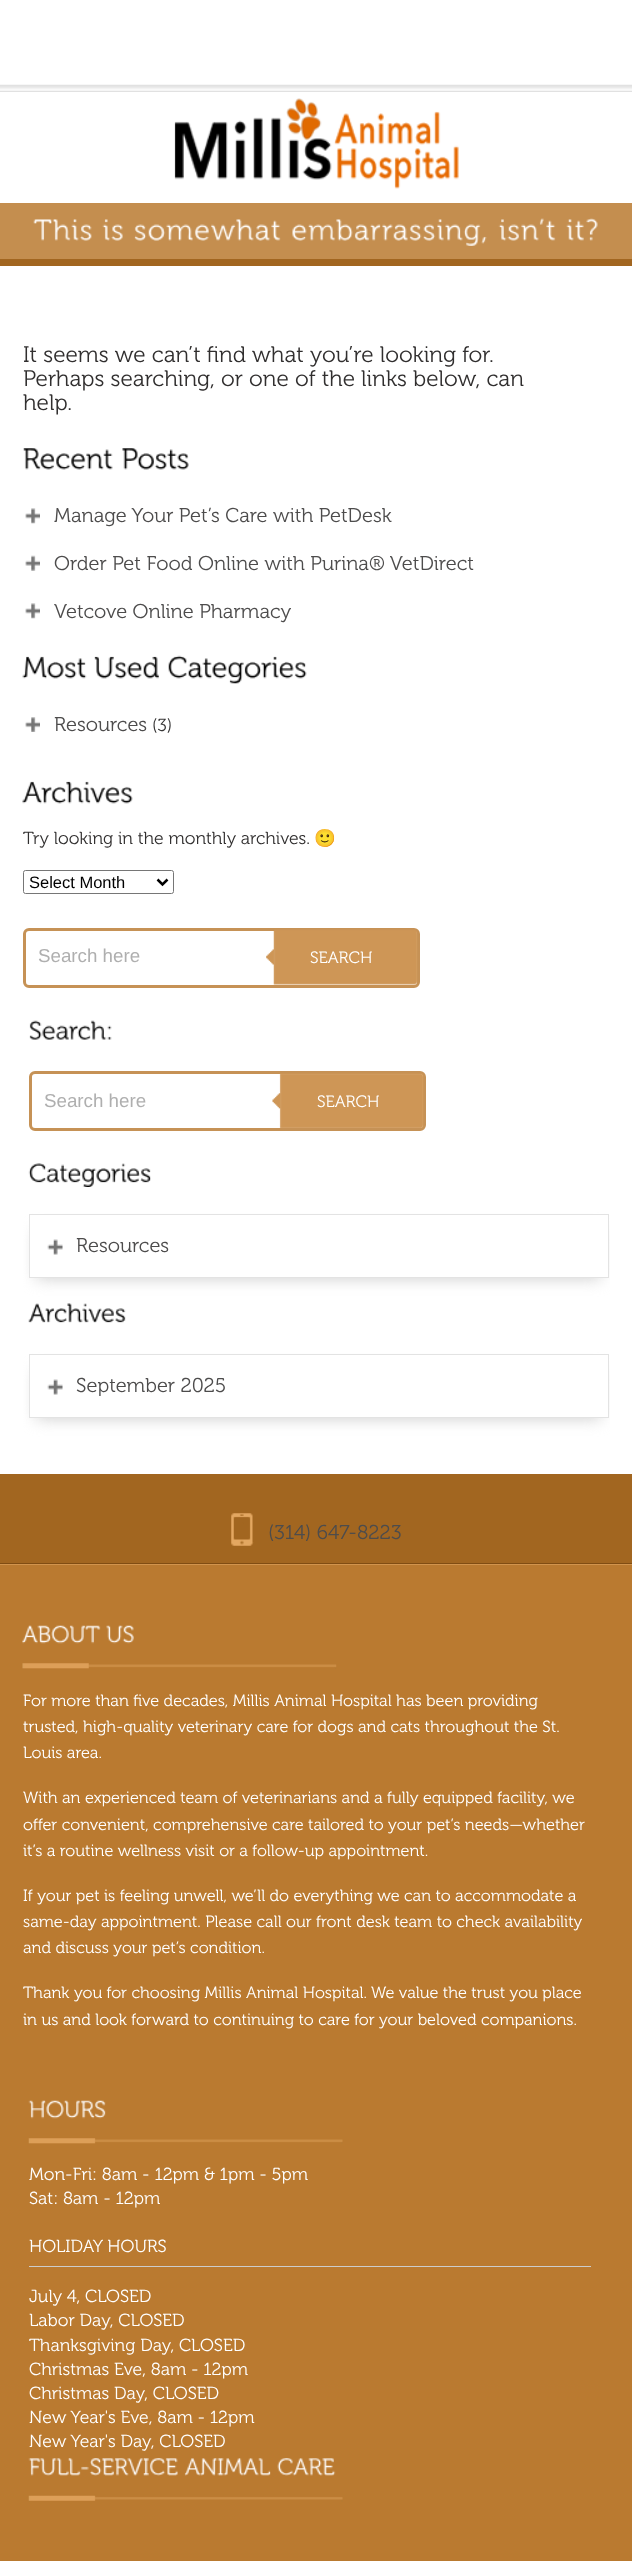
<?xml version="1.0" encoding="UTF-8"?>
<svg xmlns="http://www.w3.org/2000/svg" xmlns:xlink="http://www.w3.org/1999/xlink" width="632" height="2561">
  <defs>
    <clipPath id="clip1"><rect x="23" y="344" width="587" height="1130" /></clipPath>
    <clipPath id="clip2"><path d="M 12 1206 h 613 v 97 h -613 z m 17 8 h 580 v 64 h -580 z" clip-rule="evenodd" /></clipPath>
    <clipPath id="clip3"><path d="M 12 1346 h 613 v 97 h -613 z m 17 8 h 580 v 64 h -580 z" clip-rule="evenodd" /></clipPath>
  </defs>
  <rect width="100%" height="100%" fill="#ffffff" />
  <image x="0" y="84" width="632" height="8" xlink:href="image1.png" />
  <image x="174" y="98" width="285" height="91" xlink:href="image2.png" />
  <rect y="203" width="632" height="56" fill="#c48e4f" />
  <rect y="259" width="632" height="7" fill="#a26620" />
  <image x="33" y="219" width="59" height="22" xlink:href="image3.png" />
  <image x="102" y="219" width="21" height="22" xlink:href="image4.png" />
  <image x="134" y="219" width="147" height="22" xlink:href="image5.png" />
  <image x="292" y="219" width="195" height="27" xlink:href="image6.png" />
  <image x="498" y="218" width="58" height="23" xlink:href="image7.png" />
  <image x="566" y="218" width="32" height="23" xlink:href="image8.png" />
  <image x="23" y="448" width="90" height="22" xlink:href="image9.png" />
  <image x="122" y="448" width="67" height="22" xlink:href="image10.png" />
  <image x="25" y="508" width="15" height="16" xlink:href="image11.png" />
  <image x="25" y="555" width="15" height="16" xlink:href="image12.png" />
  <image x="25" y="603" width="15" height="16" xlink:href="image11.png" />
  <image x="22" y="656" width="65" height="23" xlink:href="image13.png" />
  <image x="94" y="656" width="65" height="23" xlink:href="image14.png" />
  <image x="168" y="655" width="139" height="29" xlink:href="image15.png" />
  <image x="25" y="717" width="15" height="15" xlink:href="image16.png" />
  <image x="22" y="781" width="111" height="23" xlink:href="image17.png" />
  <rect x="23.5" y="870.5" width="150" height="23" rx="2" fill="none" stroke="#767676" />
  <path d="M 157.5 879.5 l 5 5 l 5 -5" fill="none" stroke="#000000" stroke-width="2.5" />
  <rect x="24.5" y="929.5" width="394" height="57" rx="4.5" fill="none" stroke="#c69256" stroke-width="3" />
  <image x="266" y="929" width="152" height="56" xlink:href="image18.png" />
  <image x="29" y="1020" width="83" height="20" xlink:href="image19.png" />
  <rect x="30.5" y="1072.5" width="394" height="57" rx="4.5" fill="none" stroke="#c69256" stroke-width="3" />
  <image x="272" y="1073" width="152" height="55" xlink:href="image20.png" />
  <image x="28" y="1163" width="123" height="24" xlink:href="image21.png" />
  <g clip-path="url(#clip1)">
    <g clip-path="url(#clip2)">
      <rect x="36" y="1230" width="565" height="49" fill="#d1d1d1" filter="blur(7.5px)" />
    </g>
  </g>
  <rect x="29.5" y="1214.5" width="579" height="63" fill="none" stroke="#e3e3e3" />
  <image x="47" y="1239" width="16" height="16" xlink:href="image22.png" />
  <image x="28" y="1303" width="98" height="20" xlink:href="image23.png" />
  <g clip-path="url(#clip1)">
    <g clip-path="url(#clip3)">
      <rect x="36" y="1370" width="565" height="49" fill="#d1d1d1" filter="blur(7.5px)" />
    </g>
  </g>
  <rect x="29.5" y="1354.5" width="579" height="63" fill="none" stroke="#e3e3e3" />
  <image x="47" y="1379" width="16" height="16" xlink:href="image22.png" />
  <rect y="1474" width="632" height="89" fill="#a26620" />
  <rect y="1563" width="632" height="1" fill="#804d13" />
  <image x="231" y="1513" width="23" height="33" xlink:href="image24.png" />
  <rect y="1565" width="632" height="996" fill="#ba7a30" />
  <rect y="1564" width="632" height="1" fill="#d1944d" />
  <image x="22" y="1663" width="315" height="6" xlink:href="image25.png" />
  <image x="22" y="1625" width="79" height="19" xlink:href="image26.png" />
  <image x="106" y="1625" width="28" height="19" xlink:href="image27.png" />
  <image x="28" y="2138" width="315" height="6" xlink:href="image28.png" />
  <image x="28" y="2100" width="78" height="19" xlink:href="image29.png" />
  <rect x="29" y="2266" width="562" height="1" fill="#cccccc" />
  <image x="28" y="2495" width="315" height="7" xlink:href="image30.png" />
  <image x="28" y="2458" width="150" height="18" xlink:href="image31.png" />
  <image x="184" y="2458" width="87" height="18" xlink:href="image32.png" />
  <image x="277" y="2458" width="59" height="18" xlink:href="image33.png" />
  <text x="23" y="362" style="font-family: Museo; font-size: 22.5px; fill: #312f2f">It seems we can’t find what you’re looking for.</text>
  <text x="23" y="386" style="font-family: Museo; font-size: 22.5px; fill: #312f2f">Perhaps searching, or one of the links below, can</text>
  <text x="23" y="410" style="font-family: Museo; font-size: 22.5px; fill: #312f2f">help.</text>
  <text x="54" y="522" style="font-family: Museo; font-size: 20px; fill: #4d4c4c">Manage Your Pet’s Care with PetDesk</text>
  <text x="54" y="570" style="font-family: Museo; font-size: 20px; fill: #4d4c4c">Order Pet Food Online with Purina® VetDirect</text>
  <text x="54" y="618" style="font-family: Museo; font-size: 20px; fill: #4d4c4c">Vetcove Online Pharmacy</text>
  <text x="54" y="731" style="font-family: Museo; font-size: 20px; fill: #4d4c4c">Resources</text>
  <text x="152" y="731" style="font-family: Museo; font-size: 17.5px; fill: #373636">(3)</text>
  <text x="23" y="844" style="font-family: Museo; font-size: 17.5px; fill: #312f2f">Try looking in the monthly archives.</text>
  <text x="314" y="844" style="font-family: Noto Color Emoji; font-size: 17.5px; fill: #312f2f">🙂</text>
  <text x="29" y="888" style="font-family: Liberation Sans; font-size: 16.5px; fill: #000000">Select Month</text>
  <text x="38" y="962" style="font-family: Liberation Sans; font-size: 18.75px; fill: #afafaf">Search here</text>
  <text x="310" y="963" style="font-family: Museo; font-size: 16.5px; fill: #ffffff">SEARCH</text>
  <text x="44" y="1107" style="font-family: Liberation Sans; font-size: 18.75px; fill: #afafaf">Search here</text>
  <text x="317" y="1107" style="font-family: Museo; font-size: 16.5px; fill: #ffffff">SEARCH</text>
  <text x="76" y="1252" style="font-family: Museo; font-size: 20px; fill: #4d4c4c">Resources</text>
  <text x="76" y="1392" style="font-family: Museo; font-size: 20px; fill: #4d4c4c">September 2025</text>
  <text x="268" y="1539" style="font-family: Museo; font-size: 20px; fill: #4d4c4c">(314) 647-8223</text>
  <text x="23" y="1706" style="font-family: Museo; font-size: 16.25px; fill: #ffffff">For more than five decades, Millis Animal Hospital has been providing</text>
  <text x="23" y="1732" style="font-family: Museo; font-size: 16.25px; fill: #ffffff">trusted, high-quality veterinary care for dogs and cats throughout the St.</text>
  <text x="23" y="1758" style="font-family: Museo; font-size: 16.25px; fill: #ffffff">Louis area.</text>
  <text x="23" y="1803" style="font-family: Museo; font-size: 16.25px; fill: #ffffff">With an experienced team of veterinarians and a fully equipped facility, we</text>
  <text x="23" y="1830" style="font-family: Museo; font-size: 16.25px; fill: #ffffff">offer convenient, comprehensive care tailored to your pet’s needs—whether</text>
  <text x="23" y="1856" style="font-family: Museo; font-size: 16.25px; fill: #ffffff">it’s a routine wellness visit or a follow-up appointment.</text>
  <text x="23" y="1901" style="font-family: Museo; font-size: 16.25px; fill: #ffffff">If your pet is feeling unwell, we’ll do everything we can to accommodate a</text>
  <text x="23" y="1927" style="font-family: Museo; font-size: 16.25px; fill: #ffffff">same-day appointment. Please call our front desk team to check availability</text>
  <text x="23" y="1953" style="font-family: Museo; font-size: 16.25px; fill: #ffffff">and discuss your pet’s condition.</text>
  <text x="23" y="1998" style="font-family: Museo; font-size: 16.25px; fill: #ffffff">Thank you for choosing Millis Animal Hospital. We value the trust you place</text>
  <text x="23" y="2025" style="font-family: Museo; font-size: 16.25px; fill: #ffffff">in us and look forward to continuing to care for your beloved companions.</text>
  <text x="29" y="2180" style="font-family: Museo; font-size: 17.5px; fill: #ffffff">Mon-Fri: 8am - 12pm &amp; 1pm - 5pm</text>
  <text x="29" y="2204" style="font-family: Museo; font-size: 17.5px; fill: #ffffff">Sat: 8am - 12pm</text>
  <text x="29" y="2252" style="font-family: Museo; font-size: 17.5px; fill: #ffffff">HOLIDAY HOURS</text>
  <text x="29" y="2302" style="font-family: Museo; font-size: 17.5px; fill: #ffffff">July 4, CLOSED</text>
  <text x="29" y="2326" style="font-family: Museo; font-size: 17.5px; fill: #ffffff">Labor Day, CLOSED</text>
  <text x="29" y="2351" style="font-family: Museo; font-size: 17.5px; fill: #ffffff">Thanksgiving Day, CLOSED</text>
  <text x="29" y="2375" style="font-family: Museo; font-size: 17.5px; fill: #ffffff">Christmas Eve, 8am - 12pm</text>
  <text x="29" y="2399" style="font-family: Museo; font-size: 17.5px; fill: #ffffff">Christmas Day, CLOSED</text>
  <text x="29" y="2423" style="font-family: Museo; font-size: 17.5px; fill: #ffffff">New Year's Eve, 8am - 12pm</text>
  <text x="29" y="2447" style="font-family: Museo; font-size: 17.5px; fill: #ffffff">New Year's Day, CLOSED</text>
</svg>
